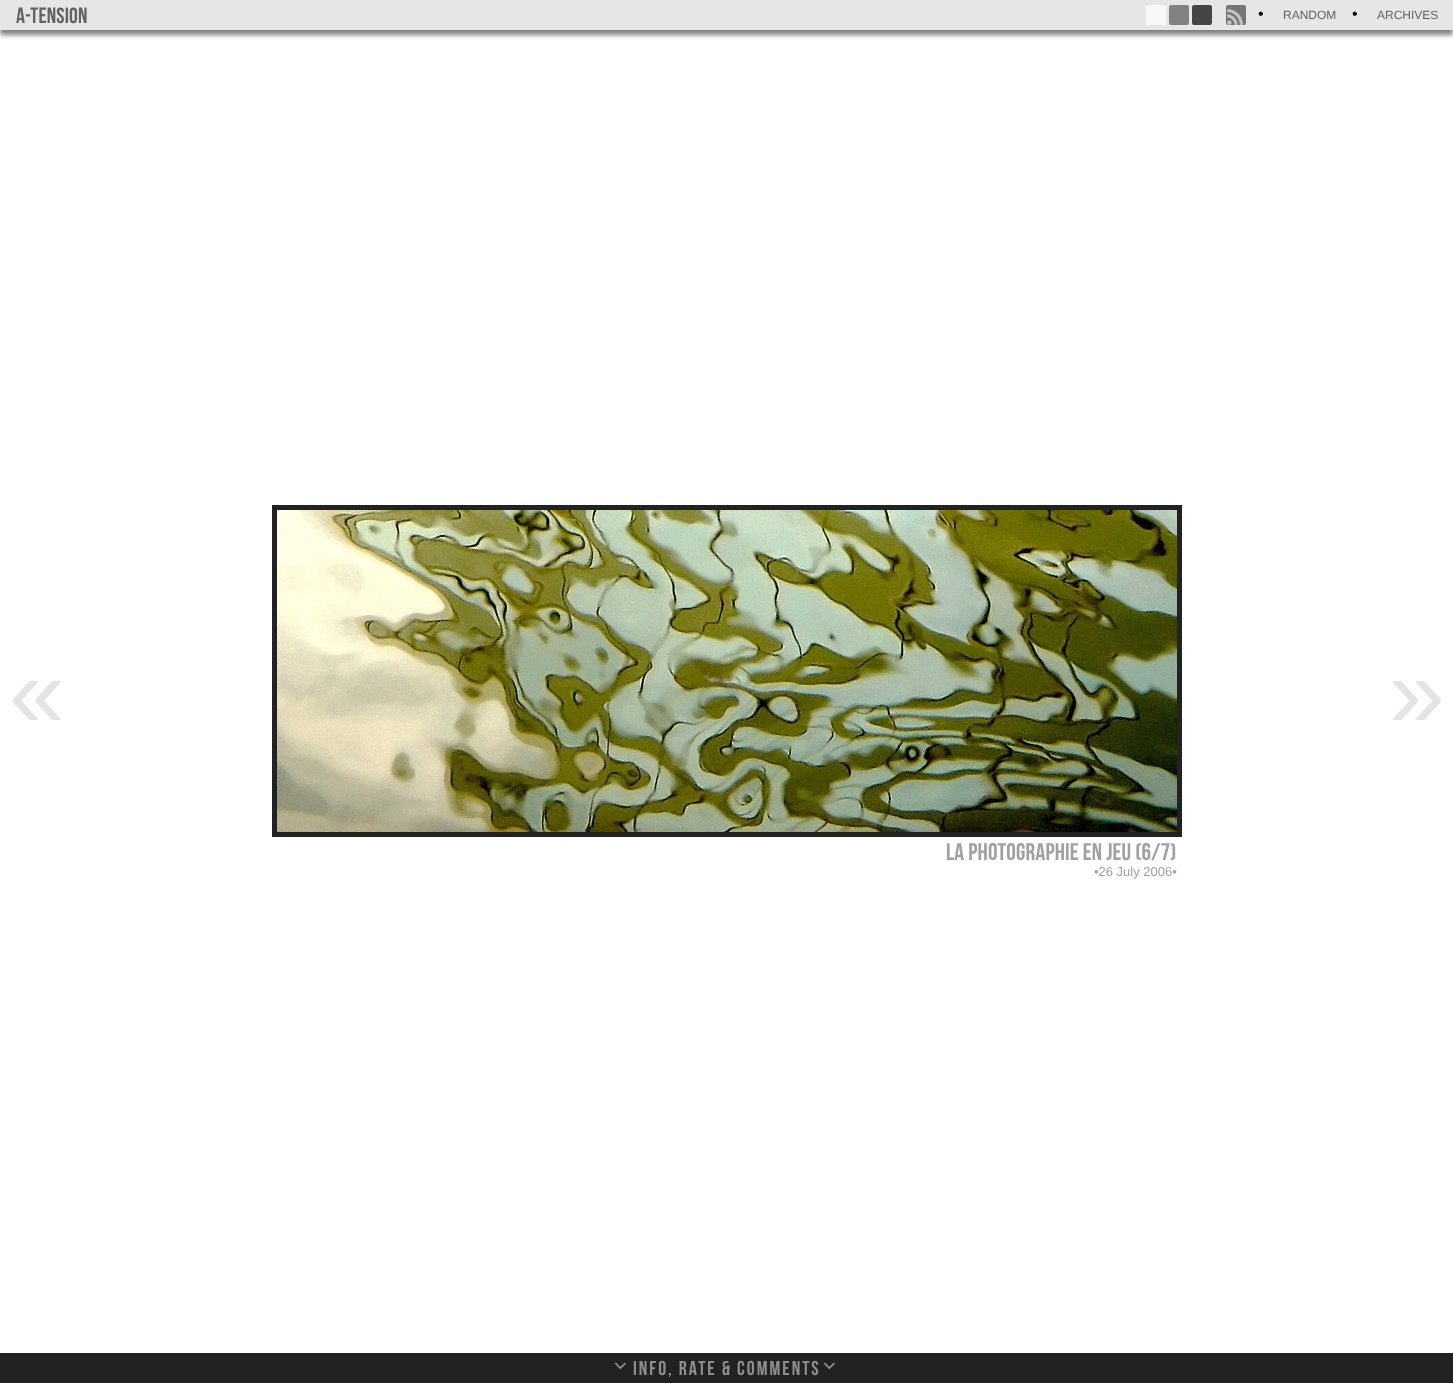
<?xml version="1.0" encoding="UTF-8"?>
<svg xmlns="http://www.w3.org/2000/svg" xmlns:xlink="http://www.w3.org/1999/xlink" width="1453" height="1383">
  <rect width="100%" height="100%" fill="#222222" />
  <rect y="30" width="1453" height="1323" fill="#ffffff" />
  <rect y="5" width="1453" height="30" fill="#000000" fill-opacity="0.5" filter="blur(2.5px)" />
  <rect width="1453" height="30" fill="#e6e6e6" />
  <rect x="1146" y="5" width="20" height="20" rx="2" fill="#f8f8f8" />
  <rect x="1169" y="5" width="20" height="20" rx="2" fill="#818181" />
  <rect x="1192" y="5" width="20" height="20" rx="2" fill="#454545" />
  <rect x="1226" y="5" width="20" height="20" rx="2" fill="#757575" />
  <image x="1227" y="9" width="16" height="16" xlink:href="image1.png" />
  <rect x="272" y="505" width="910" height="332" fill="#222222" />
  <image x="277" y="510" width="900" height="322" xlink:href="image2.png" />
  <image x="614" y="1362" width="12" height="8" xlink:href="image3.png" />
  <image x="823" y="1362" width="12" height="8" xlink:href="image3.png" />
  <text x="16" y="23" style="font-family: Bebas Neue; font-size: 22px; letter-spacing: 0.2px; fill: #636363">a-tension</text>
  <text x="1258" y="19" style="font-family: Liberation Sans; font-size: 16px; fill: #000000">•</text>
  <text x="1283" y="19" style="font-family: Liberation Sans; font-size: 12px; fill: #636363">RANDOM</text>
  <text x="1352" y="19" style="font-family: Liberation Sans; font-size: 16px; fill: #000000">•</text>
  <text x="1377" y="19" style="font-family: Liberation Sans; font-size: 12px; fill: #636363">ARCHIVES</text>
  <text x="9" y="727" style="font-family: Liberation Sans; font-size: 100px; fill: #e4e4e4">«</text>
  <text x="1389" y="727" style="font-family: Liberation Sans; font-size: 100px; fill: #e4e4e4">»</text>
  <text x="946" y="860" style="font-family: Bebas Neue; font-size: 24px; letter-spacing: 0.2px; fill: #a1a1a1">la photographie en jeu (6/7)</text>
  <text x="1094" y="876" style="font-family: Liberation Sans; font-size: 13px; fill: #a1a1a1">•26 July 2006•</text>
  <text x="633" y="1375" style="font-family: Bebas Neue; font-size: 20px; letter-spacing: 2px; fill: #8d8d8d">Info, rate &amp; Comments</text>
</svg>
